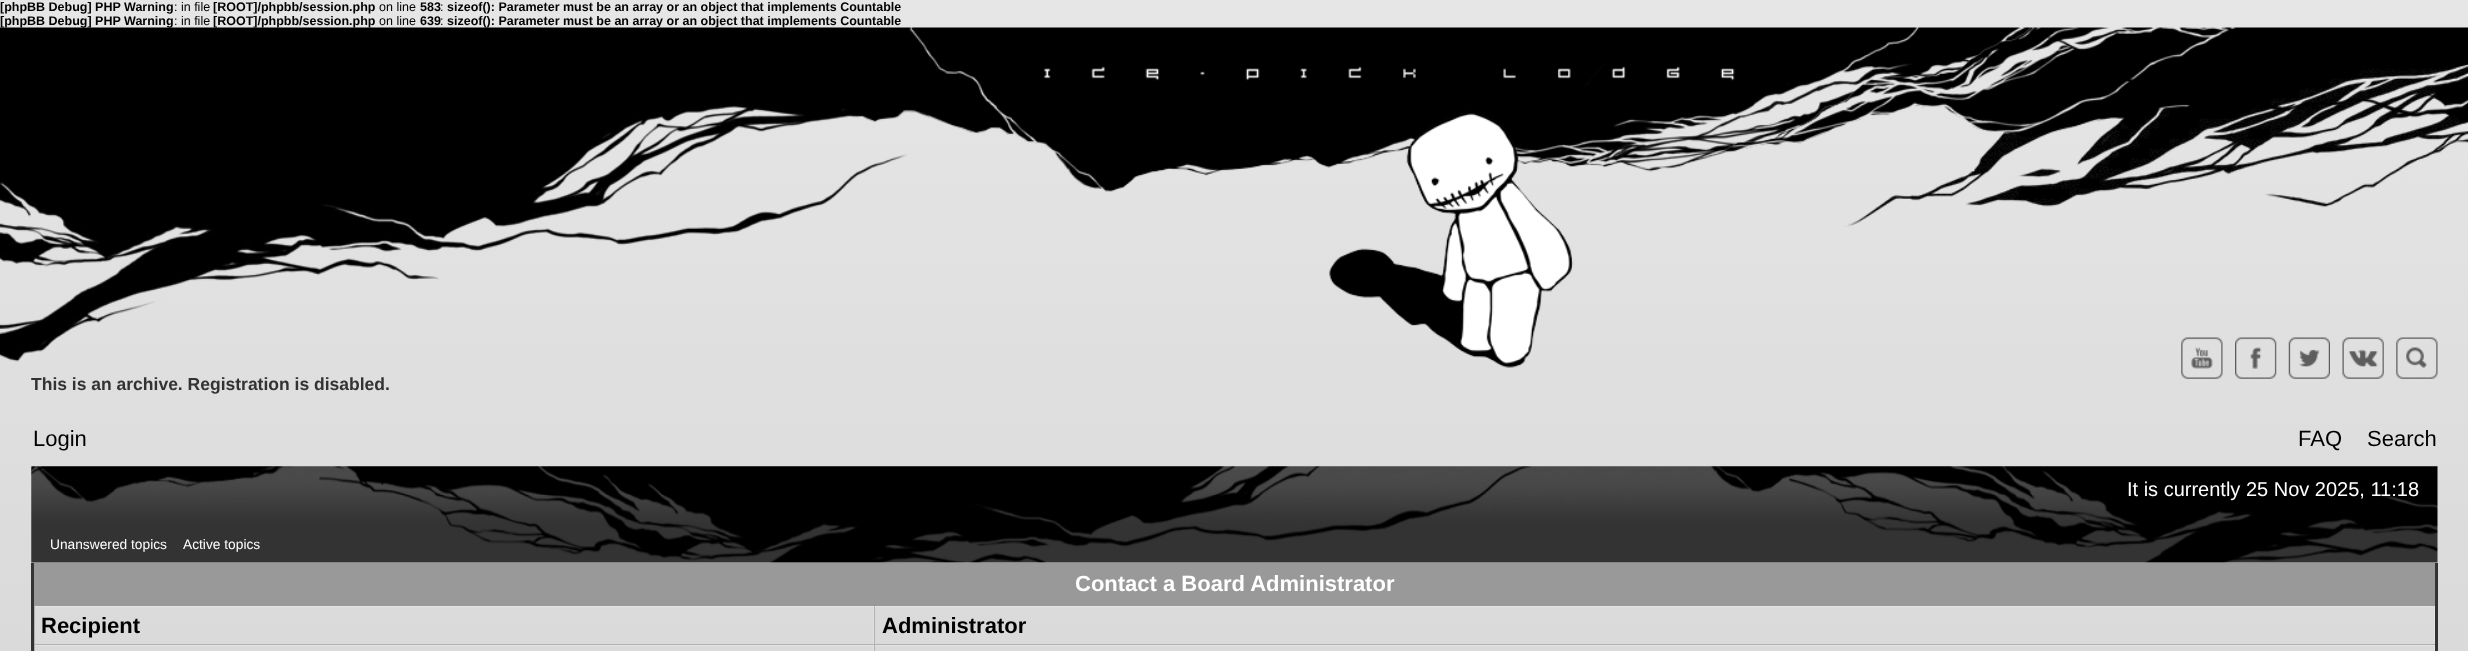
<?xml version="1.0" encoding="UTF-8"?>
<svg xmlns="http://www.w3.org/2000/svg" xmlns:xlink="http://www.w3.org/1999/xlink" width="2468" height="651">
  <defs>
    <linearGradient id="g1" gradientUnits="userSpaceOnUse" x1="1234" y1="0" x2="1234" y2="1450"><stop offset="0" stop-color="#e6e6e6" /><stop offset="1" stop-color="#cbcbcb" /></linearGradient>
  </defs>
  <rect width="100%" height="100%" fill="#ffffff" />
  <rect width="2468" height="651" fill="url(#g1)" />
  <image x="0" y="27" width="2468" height="341" xlink:href="image1.png" />
  <image x="2181" y="337" width="42" height="42" xlink:href="image2.png" />
  <image x="2235" y="337" width="42" height="42" xlink:href="image3.png" />
  <image x="2288" y="337" width="42" height="42" xlink:href="image4.png" />
  <image x="2342" y="337" width="42" height="42" xlink:href="image5.png" />
  <image x="2396" y="337" width="42" height="42" xlink:href="image6.png" />
  <image x="31" y="466" width="2407" height="29" xlink:href="image7.png" />
  <image x="31" y="495" width="2407" height="68" xlink:href="image8.png" />
  <rect x="2435" y="563" width="3" height="88" fill="#333333" />
  <rect x="31" y="563" width="3" height="88" fill="#333333" />
  <rect x="34" y="563" width="2401" height="43" fill="#999999" />
  <rect x="34" y="606" width="2401" height="1" fill="#e3e3e3" />
  <rect x="873" y="606" width="1" height="39" fill="#e3e3e3" />
  <rect x="34" y="644" width="840" height="1" fill="#b1b0b0" />
  <rect x="34" y="606" width="1" height="39" fill="#b2b0b0" />
  <rect x="2434" y="606" width="1" height="39" fill="#e3e3e3" />
  <rect x="874" y="644" width="1561" height="1" fill="#b1b0b0" />
  <rect x="874" y="606" width="1" height="39" fill="#b2b0b0" />
  <rect x="34" y="645" width="2401" height="1" fill="#e3e3e3" />
  <rect x="873" y="645" width="1" height="6" fill="#e3e3e3" />
  <rect x="34" y="645" width="1" height="6" fill="#b2b0b0" />
  <rect x="2434" y="645" width="1" height="6" fill="#e3e3e3" />
  <rect x="874" y="645" width="1" height="6" fill="#b2b0b0" />
  <text x="0" y="11" style="font-family: Liberation Sans; font-size: 12.5px; font-weight: bold; fill: #000000">[phpBB Debug] PHP Warning</text>
  <text x="174" y="11" style="font-family: Liberation Sans; font-size: 12.5px; fill: #000000">: in file</text>
  <text x="213" y="11" style="font-family: Liberation Sans; font-size: 12.5px; font-weight: bold; fill: #000000">[ROOT]/phpbb/session.php</text>
  <text x="379" y="11" style="font-family: Liberation Sans; font-size: 12.5px; fill: #000000">on line</text>
  <text x="420" y="11" style="font-family: Liberation Sans; font-size: 12.5px; font-weight: bold; fill: #000000">583</text>
  <text x="440" y="11" style="font-family: Liberation Sans; font-size: 12.5px; fill: #000000">:</text>
  <text x="447" y="11" style="font-family: Liberation Sans; font-size: 12.5px; font-weight: bold; fill: #000000">sizeof(): Parameter must be an array or an object that implements Countable</text>
  <text x="0" y="25" style="font-family: Liberation Sans; font-size: 12.5px; font-weight: bold; fill: #000000">[phpBB Debug] PHP Warning</text>
  <text x="174" y="25" style="font-family: Liberation Sans; font-size: 12.5px; fill: #000000">: in file</text>
  <text x="213" y="25" style="font-family: Liberation Sans; font-size: 12.5px; font-weight: bold; fill: #000000">[ROOT]/phpbb/session.php</text>
  <text x="379" y="25" style="font-family: Liberation Sans; font-size: 12.5px; fill: #000000">on line</text>
  <text x="420" y="25" style="font-family: Liberation Sans; font-size: 12.5px; font-weight: bold; fill: #000000">639</text>
  <text x="440" y="25" style="font-family: Liberation Sans; font-size: 12.5px; fill: #000000">:</text>
  <text x="447" y="25" style="font-family: Liberation Sans; font-size: 12.5px; font-weight: bold; fill: #000000">sizeof(): Parameter must be an array or an object that implements Countable</text>
  <text x="31" y="390" style="font-family: Liberation Sans; font-size: 17.5px; font-weight: bold; fill: #333333">This is an archive. Registration is disabled.</text>
  <text x="33" y="446" style="font-family: Liberation Sans; font-size: 22px; fill: #000000">Login</text>
  <text x="2298" y="446" style="font-family: Liberation Sans; font-size: 22px; fill: #000000">FAQ</text>
  <text x="2367" y="446" style="font-family: Liberation Sans; font-size: 22px; fill: #000000">Search</text>
  <text x="2127" y="496" style="font-family: Liberation Sans; font-size: 20px; fill: #ffffff">It is currently 25 Nov 2025, 11:18</text>
  <text x="50" y="549" style="font-family: Liberation Sans; font-size: 13.75px; fill: #ffffff">Unanswered topics</text>
  <text x="183" y="549" style="font-family: Liberation Sans; font-size: 13.75px; fill: #ffffff">Active topics</text>
  <text x="1075" y="591" style="font-family: Liberation Sans; font-size: 22px; font-weight: bold; fill: #ffffff">Contact a Board Administrator</text>
  <text x="41" y="633" style="font-family: Liberation Sans; font-size: 22px; font-weight: bold; fill: #000000">Recipient</text>
  <text x="882" y="633" style="font-family: Liberation Sans; font-size: 22px; font-weight: bold; fill: #000000">Administrator</text>
</svg>
